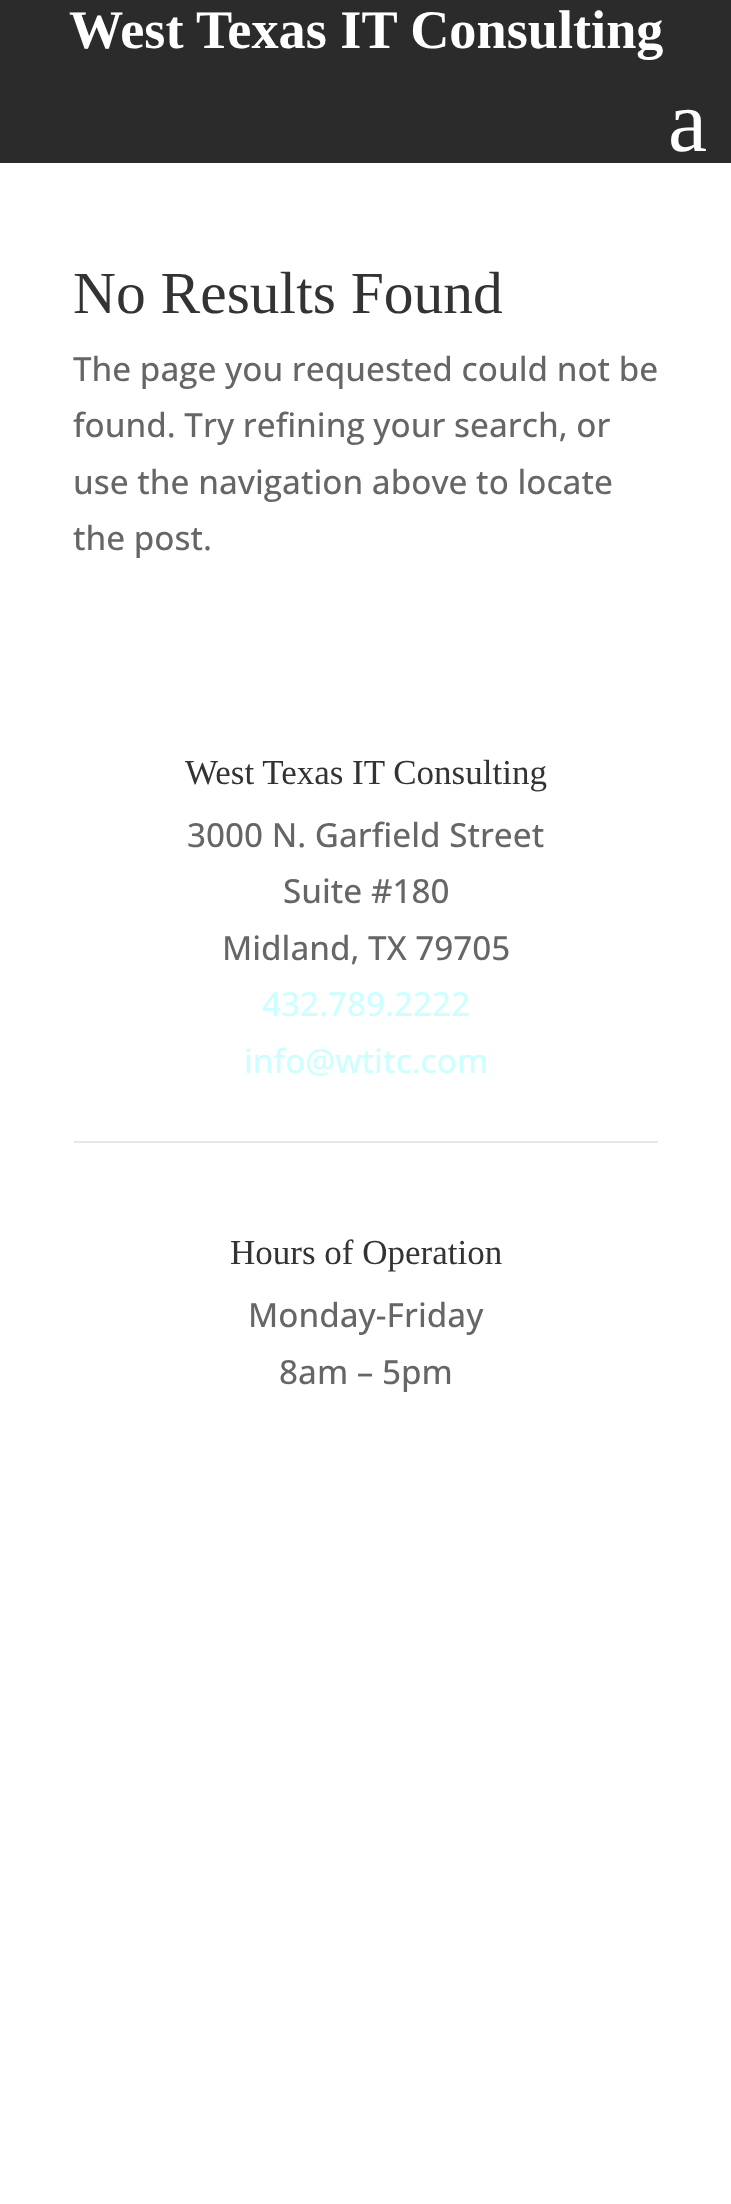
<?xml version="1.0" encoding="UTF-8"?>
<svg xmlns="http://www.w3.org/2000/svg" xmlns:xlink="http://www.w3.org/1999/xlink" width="731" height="2204">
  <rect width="100%" height="100%" fill="#ffffff" />
  <rect width="731" height="163" fill="#2b2b2b" />
  <rect x="74" y="1141" width="584" height="2" fill="#e6e6e6" />
  <text x="69" y="48" style="font-family: Liberation Serif; font-size: 54.25px; font-weight: bold; fill: #ffffff">West Texas IT Consulting</text>
  <text x="668" y="151" style="font-family: Liberation Serif; font-size: 88px; fill: #ffffff">a</text>
  <text x="73" y="313" style="font-family: Liberation Serif; font-size: 59.5px; fill: #333333">No Results Found</text>
  <text x="73" y="381" style="font-family: Open Sans; font-size: 33.25px; font-weight: 500; fill: #666666">The page you requested could not be</text>
  <text x="73" y="437" style="font-family: Open Sans; font-size: 33.25px; font-weight: 500; fill: #666666">found. Try refining your search, or</text>
  <text x="73" y="494" style="font-family: Open Sans; font-size: 33.25px; font-weight: 500; fill: #666666">use the navigation above to locate</text>
  <text x="73" y="550" style="font-family: Open Sans; font-size: 33.25px; font-weight: 500; fill: #666666">the post.</text>
  <text x="185" y="784" style="font-family: Liberation Serif; font-size: 35px; fill: #333333">West Texas IT Consulting</text>
  <text x="187" y="847" style="font-family: Open Sans; font-size: 33.25px; font-weight: 500; fill: #666666">3000 N. Garfield Street</text>
  <text x="283" y="903" style="font-family: Open Sans; font-size: 33.25px; font-weight: 500; fill: #666666">Suite #180</text>
  <text x="222" y="960" style="font-family: Open Sans; font-size: 33.25px; font-weight: 500; fill: #666666">Midland, TX 79705</text>
  <text x="262" y="1016" style="font-family: Open Sans; font-size: 33.25px; font-weight: 500; fill: #ccffff">432.789.2222</text>
  <text x="244" y="1073" style="font-family: Open Sans; font-size: 33.25px; font-weight: 500; fill: #ccffff">info@wtitc.com</text>
  <text x="230" y="1264" style="font-family: Liberation Serif; font-size: 35px; fill: #333333">Hours of Operation</text>
  <text x="248" y="1327" style="font-family: Open Sans; font-size: 33.25px; font-weight: 500; fill: #666666">Monday-Friday</text>
  <text x="279" y="1384" style="font-family: Open Sans; font-size: 33.25px; font-weight: 500; fill: #666666">8am – 5pm</text>
</svg>
